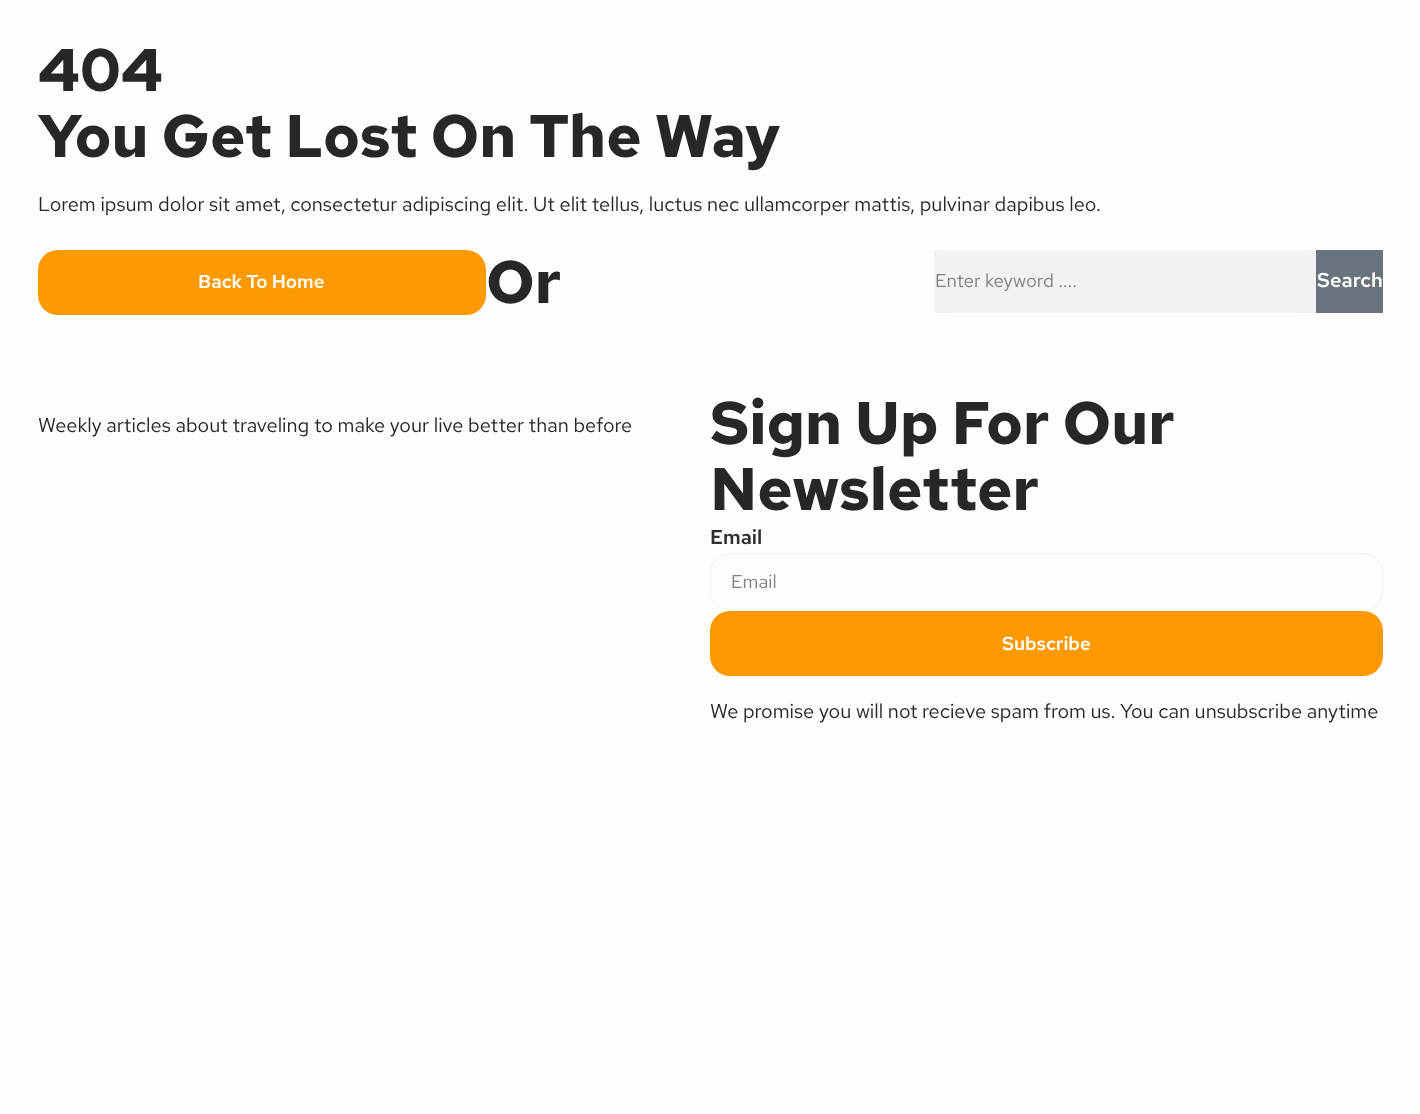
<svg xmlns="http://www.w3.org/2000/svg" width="1420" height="1114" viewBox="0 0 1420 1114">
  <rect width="100%" height="100%" fill="#fdfdfb"/>
  <rect x="38" y="250" width="448" height="65" rx="20" fill="#ff9901"/>
  <path d="M934 250h382v63H934z" fill="#f1f2f3"/>
  <rect x="934.5" y="250.5" width="381" height="62" rx="19.5" fill="none" stroke="#f4f4f4"/>
  <path d="M1316 250h67v63H1316z" fill="#69727d"/>
  <rect x="710.5" y="553.5" width="672" height="57" rx="19.5" fill="none" stroke="#f4f4f4"/>
  <rect x="710" y="611" width="673" height="65" rx="20" fill="#ff9901"/>
  <g font-family="Red Hat Text" font-size="60" font-weight="bold" fill="#272726">
    <text x="38" y="91">404</text>
    <text x="38" y="157">You Get Lost On The Way</text>
  </g>
  <text x="38" y="211" font-family="Red Hat Text" font-size="20" fill="#272726">Lorem ipsum dolor sit amet, consectetur adipiscing elit. Ut elit tellus, luctus nec ullamcorper mattis, pulvinar dapibus leo.</text>
  <text x="198" y="288" font-family="Red Hat Text" font-size="18.75" font-weight="600" fill="#fff">Back To Home</text>
  <text x="486" y="303" font-family="Red Hat Text" font-size="60" font-weight="bold" fill="#272726">Or</text>
  <text x="935" y="287" font-family="Red Hat Text" font-size="18.75" fill="#808180">Enter keyword ....</text>
  <text x="1317" y="287" font-family="Red Hat Text" font-size="20" font-weight="600" fill="#fff">Search</text>
  <text x="38" y="432" font-family="Red Hat Text" font-size="20" fill="#272726">Weekly articles about traveling to make your live better than before</text>
  <g font-family="Red Hat Text" font-size="60" font-weight="bold" fill="#272726">
    <text x="710" y="444">Sign Up For Our</text>
    <text x="710" y="510">Newsletter</text>
  </g>
  <text x="710" y="544" font-family="Red Hat Text" font-size="20" font-weight="600" fill="#2e2e2d">Email</text>
  <text x="731" y="588" font-family="Red Hat Text" font-size="18.75" fill="#808180">Email</text>
  <text x="1002" y="650" font-family="Red Hat Text" font-size="18.75" font-weight="600" fill="#fff">Subscribe</text>
  <text x="710" y="718" font-family="Red Hat Text" font-size="20" fill="#272726">We promise you will not recieve spam from us. You can unsubscribe anytime</text>
</svg>
